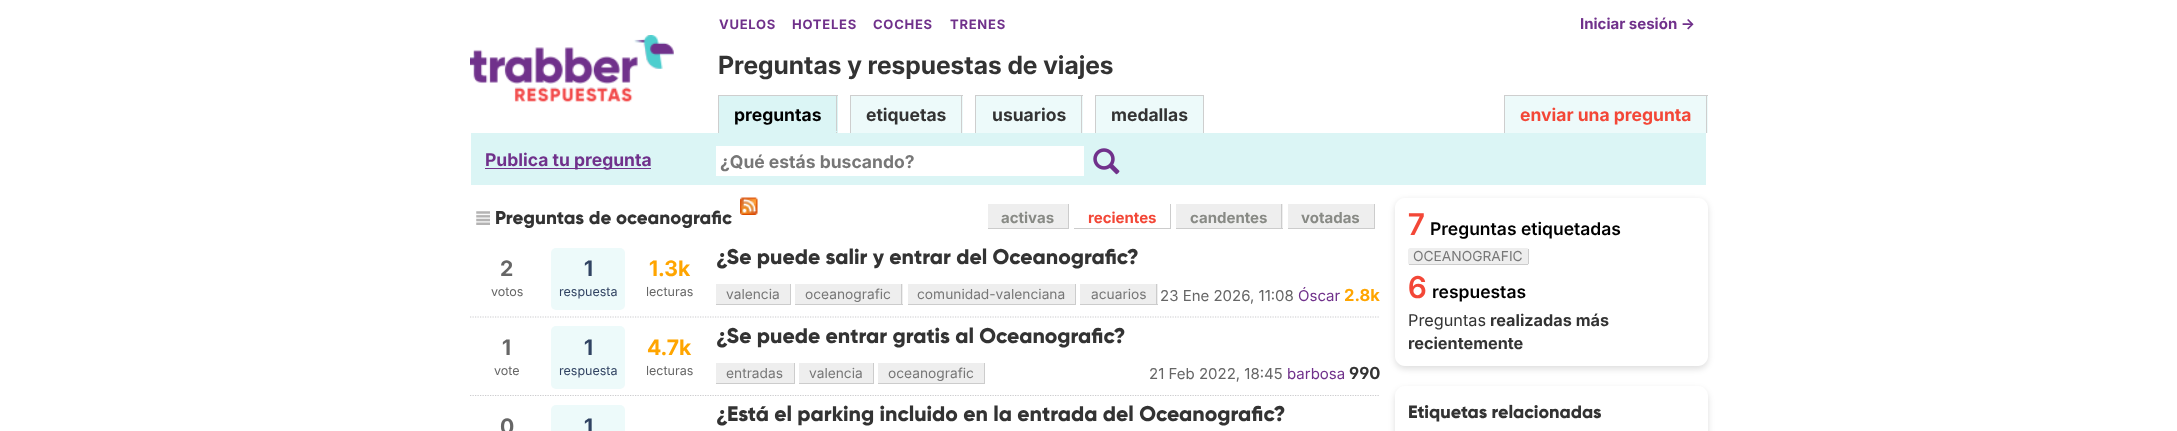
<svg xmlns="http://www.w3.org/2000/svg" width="2177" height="431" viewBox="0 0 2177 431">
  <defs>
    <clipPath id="clip1"><path d="M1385 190H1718V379H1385ZM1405 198H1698C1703.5 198 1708 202.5 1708 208V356C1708 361.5 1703.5 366 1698 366H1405C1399.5 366 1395 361.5 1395 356V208C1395 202.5 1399.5 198 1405 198Z" clip-rule="evenodd"/></clipPath>
    <clipPath id="clip2"><path d="M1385 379H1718V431H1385ZM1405 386H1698C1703.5 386 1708 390.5 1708 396V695C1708 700.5 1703.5 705 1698 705H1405C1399.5 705 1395 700.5 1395 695V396C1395 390.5 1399.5 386 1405 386Z" clip-rule="evenodd"/></clipPath>
  </defs>
  <rect width="100%" height="100%" fill="#fff"/>
  <image x="470" y="35" width="204" height="68" href="img/1.png"/>
  <path d="M719 96h119v37H719z" fill="#dbf5f5"/>
  <path d="M718 95h120v1H718z" fill="#cecece"/>
  <path d="M836 95h1v38H836z" fill="#cecece"/>
  <path d="M718 131h120v1H718z" fill="#dbf5f5"/>
  <path d="M718 95h1v38H718z" fill="#cecece"/>
  <path d="M851 96h112v37H851z" fill="#edfafa"/>
  <path d="M850 95h113v1H850z" fill="#cecece"/>
  <path d="M961 95h1v38H961z" fill="#cecece"/>
  <path d="M850 95h1v38H850z" fill="#cecece"/>
  <path d="M976 96h107v37H976z" fill="#edfafa"/>
  <path d="M975 95h108v1H975z" fill="#cecece"/>
  <path d="M1081 95h1v38H1081z" fill="#cecece"/>
  <path d="M975 95h1v38H975z" fill="#cecece"/>
  <path d="M1096 96h107v37H1096z" fill="#edfafa"/>
  <path d="M1095 95h109v1H1095z" fill="#cecece"/>
  <path d="M1203 95h1v38H1203z" fill="#cecece"/>
  <path d="M1095 95h1v38H1095z" fill="#cecece"/>
  <path d="M1505 96h203v37H1505z" fill="#edfafa"/>
  <path d="M1504 95h204v1H1504z" fill="#cecece"/>
  <path d="M1706 95h1v38H1706z" fill="#cecece"/>
  <path d="M1504 95h1v38H1504z" fill="#cecece"/>
  <path d="M471 133h1235v52H471z" fill="#dbf5f5"/>
  <path d="M485 168h166v1H485z" fill="#70318b"/>
  <path d="M716 146h368v30H716z" fill="#fff"/>
  <image x="1093" y="148" width="27" height="27" href="img/2.png"/>
  <image x="740" y="197" width="18" height="18" href="img/3.png"/>
  <image x="476" y="211" width="14" height="14" href="img/4.png"/>
  <path d="M988 204h80v24H988z" fill="#eee"/>
  <path d="M1068 204h1v25H1068z" fill="#ccc"/>
  <path d="M988 228h81v1H988z" fill="#ccc"/>
  <path d="M1170 204h1v25H1170z" fill="#ccc"/>
  <path d="M1074 228h97v1H1074z" fill="#ccc"/>
  <path d="M1176 204h107v24H1176z" fill="#eee"/>
  <path d="M1281 204h1v25H1281z" fill="#ccc"/>
  <path d="M1176 228h107v1H1176z" fill="#ccc"/>
  <path d="M1288 204h86v24H1288z" fill="#eee"/>
  <path d="M1374 204h1v25H1374z" fill="#ccc"/>
  <path d="M1288 228h87v1H1288z" fill="#ccc"/>
  <rect x="551" y="248" width="74" height="62" rx="5" fill="#edfafa"/>
  <path d="M716 284h74v20H716z" fill="#eee"/>
  <path d="M790 284h1v21H790z" fill="#ccc"/>
  <path d="M716 304h75v1H716z" fill="#ccc"/>
  <path d="M795 284h108v20H795z" fill="#eee"/>
  <path d="M901 284h1v21H901z" fill="#ccc"/>
  <path d="M795 304h108v1H795z" fill="#ccc"/>
  <path d="M908 284h167v20H908z" fill="#eee"/>
  <path d="M1075 284h1v21H1075z" fill="#ccc"/>
  <path d="M908 304h168v1H908z" fill="#ccc"/>
  <path d="M1080 284h78v20H1080z" fill="#eee"/>
  <path d="M1156 284h1v21H1156z" fill="#ccc"/>
  <path d="M1080 304h78v1H1080z" fill="#ccc"/>
  <path d="M470 317H1380" fill="none" stroke="#ccccce" stroke-width="1.2" stroke-dasharray="1.25 1.25"/>
  <rect x="551" y="326" width="74" height="63" rx="5" fill="#edfafa"/>
  <path d="M716 363h78v20H716z" fill="#eee"/>
  <path d="M794 363h1v21H794z" fill="#ccc"/>
  <path d="M716 383h79v1H716z" fill="#ccc"/>
  <path d="M799 363h74v20H799z" fill="#eee"/>
  <path d="M873 363h1v21H873z" fill="#ccc"/>
  <path d="M799 383h75v1H799z" fill="#ccc"/>
  <path d="M878 363h106v20H878z" fill="#eee"/>
  <path d="M984 363h1v21H984z" fill="#ccc"/>
  <path d="M878 383h107v1H878z" fill="#ccc"/>
  <path d="M470 395.5H1380" fill="none" stroke="#ccccce" stroke-width="1.2" stroke-dasharray="1.25 1.25"/>
  <rect x="551" y="405" width="74" height="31" rx="5" fill="#edfafa"/>
  <g clip-path="url(#clip1)">
    <rect x="1395" y="200" width="313" height="169" rx="10" fill="#00000021" filter="blur(3px)"/>
  </g>
  <rect x="1408" y="248" width="121" height="17" rx="2.5" fill="#eee"/>
  <path d="M1528 249h1v15H1528z" fill="#ccc"/>
  <path d="M1409 264h119v1H1409z" fill="#ccc"/>
  <g clip-path="url(#clip2)">
    <rect x="1395" y="389" width="313" height="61" rx="10" fill="#00000021" filter="blur(3px)"/>
  </g>
  <g font-family="Inter" font-size="13" font-weight="bold" letter-spacing="0.75" fill="#70318b">
    <text x="719" y="29">VUELOS</text>
    <text x="792" y="29">HOTELES</text>
    <text x="873" y="29">COCHES</text>
    <text x="950" y="29">TRENES</text>
  </g>
  <text x="1580" y="29" font-family="Inter" font-size="15" font-weight="bold" fill="#70318b">Iniciar sesión →</text>
  <text x="718" y="74" font-family="'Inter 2'" font-size="25" font-weight="bold" fill="#333">Preguntas y respuestas de viajes</text>
  <text x="734" y="121" font-family="Inter" font-size="17.5" font-weight="bold" fill="#000">preguntas</text>
  <g font-family="Inter" font-size="17.5" font-weight="bold" fill="#333">
    <text x="866" y="121">etiquetas</text>
    <text x="992" y="121">usuarios</text>
    <text x="1111" y="121">medallas</text>
  </g>
  <text x="1520" y="121" font-family="Inter" font-size="17.5" font-weight="bold" fill="#f34737">enviar una pregunta</text>
  <text x="485" y="166" font-family="Inter" font-size="17.5" font-weight="bold" fill="#70318b">Publica tu pregunta</text>
  <text x="720" y="168" font-family="Inter" font-size="17.5" font-weight="bold" fill="#777">¿Qué estás buscando?</text>
  <text x="495" y="224" font-family="Gilroy" font-size="18.75" font-weight="800" fill="#333">Preguntas de oceanografic</text>
  <text x="1001" y="223" font-family="Inter" font-size="15" font-weight="bold" fill="#888a85">activas</text>
  <text x="1088" y="223" font-family="Inter" font-size="15" font-weight="bold" fill="#f34737">recientes</text>
  <g font-family="Inter" font-size="15" font-weight="bold" fill="#888a85">
    <text x="1190" y="223">candentes</text>
    <text x="1301" y="223">votadas</text>
  </g>
  <text x="500" y="276" font-family="'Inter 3'" font-size="21.25" font-weight="bold" fill="#666">2</text>
  <text x="491" y="296" font-family="Inter" font-size="12.5" fill="#666">votos</text>
  <text x="584" y="276" font-family="'Inter 3'" font-size="21.25" font-weight="bold" fill="#314362">1</text>
  <text x="559" y="296" font-family="Inter" font-size="12.5" fill="#314362">respuesta</text>
  <text x="649" y="276" font-family="'Inter 3'" font-size="21.25" font-weight="bold" fill="#ffa500">1.3k</text>
  <text x="646" y="296" font-family="Inter" font-size="12.5" fill="#666">lecturas</text>
  <text x="716" y="264" font-family="Gilroy" font-size="21.25" font-weight="800" fill="#333">¿Se puede salir y entrar del Oceanografic?</text>
  <g font-family="Inter" font-size="13.75" fill="#777">
    <text x="726" y="299">valencia</text>
    <text x="805" y="299">oceanografic</text>
    <text x="917" y="299">comunidad-valenciana</text>
    <text x="1091" y="299">acuarios</text>
  </g>
  <text x="1160" y="301" font-family="Inter" font-size="15" fill="#666">23 Ene 2026, 11:08</text>
  <text x="1298" y="301" font-family="Inter" font-size="15" fill="#70318b">Óscar</text>
  <text x="1344" y="301" font-family="Inter" font-size="16.5" font-weight="bold" fill="#ffa500">2.8k</text>
  <text x="502" y="355" font-family="'Inter 3'" font-size="21.25" font-weight="bold" fill="#666">1</text>
  <text x="494" y="375" font-family="Inter" font-size="12.5" fill="#666">vote</text>
  <text x="584" y="355" font-family="'Inter 3'" font-size="21.25" font-weight="bold" fill="#314362">1</text>
  <text x="559" y="375" font-family="Inter" font-size="12.5" fill="#314362">respuesta</text>
  <text x="647" y="355" font-family="'Inter 3'" font-size="21.25" font-weight="bold" fill="#ffa500">4.7k</text>
  <text x="646" y="375" font-family="Inter" font-size="12.5" fill="#666">lecturas</text>
  <text x="716" y="343" font-family="Gilroy" font-size="21.25" font-weight="800" fill="#333">¿Se puede entrar gratis al Oceanografic?</text>
  <g font-family="Inter" font-size="13.75" fill="#777">
    <text x="726" y="378">entradas</text>
    <text x="809" y="378">valencia</text>
    <text x="888" y="378">oceanografic</text>
  </g>
  <text x="1149" y="379" font-family="Inter" font-size="15" fill="#666">21 Feb 2022, 18:45</text>
  <text x="1287" y="379" font-family="Inter" font-size="15" fill="#70318b">barbosa</text>
  <text x="1349" y="379" font-family="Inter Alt" font-size="16.5" font-weight="bold" fill="#333">990</text>
  <text x="500" y="434" font-family="'Inter 3'" font-size="21.25" font-weight="bold" fill="#666">0</text>
  <text x="584" y="434" font-family="'Inter 3'" font-size="21.25" font-weight="bold" fill="#314362">1</text>
  <text x="716" y="421" font-family="Gilroy" font-size="21.25" font-weight="800" fill="#333">¿Está el parking incluido en la entrada del Oceanografic?</text>
  <text x="1408" y="235" font-family="Inter" font-size="30" font-weight="600" fill="#f34737">7</text>
  <text x="1430" y="235" font-family="'Inter 2'" font-size="17.5" font-weight="600" fill="#000">Preguntas etiquetadas</text>
  <text x="1413" y="261" font-family="Inter" font-size="13.75" fill="#777">OCEANOGRAFIC</text>
  <text x="1408" y="298" font-family="Inter" font-size="30" font-weight="600" fill="#f34737">6</text>
  <text x="1432" y="298" font-family="'Inter 2'" font-size="17.5" font-weight="600" fill="#000">respuestas</text>
  <text x="1408" y="326" font-family="Inter" font-size="16.25" fill="#333">Preguntas</text>
  <g font-family="Inter" font-size="16.25" font-weight="bold" fill="#333">
    <text x="1490" y="326">realizadas más</text>
    <text x="1408" y="349">recientemente</text>
  </g>
  <text x="1408" y="418" font-family="Gilroy" font-size="18" font-weight="800" fill="#333">Etiquetas relacionadas</text>
</svg>
